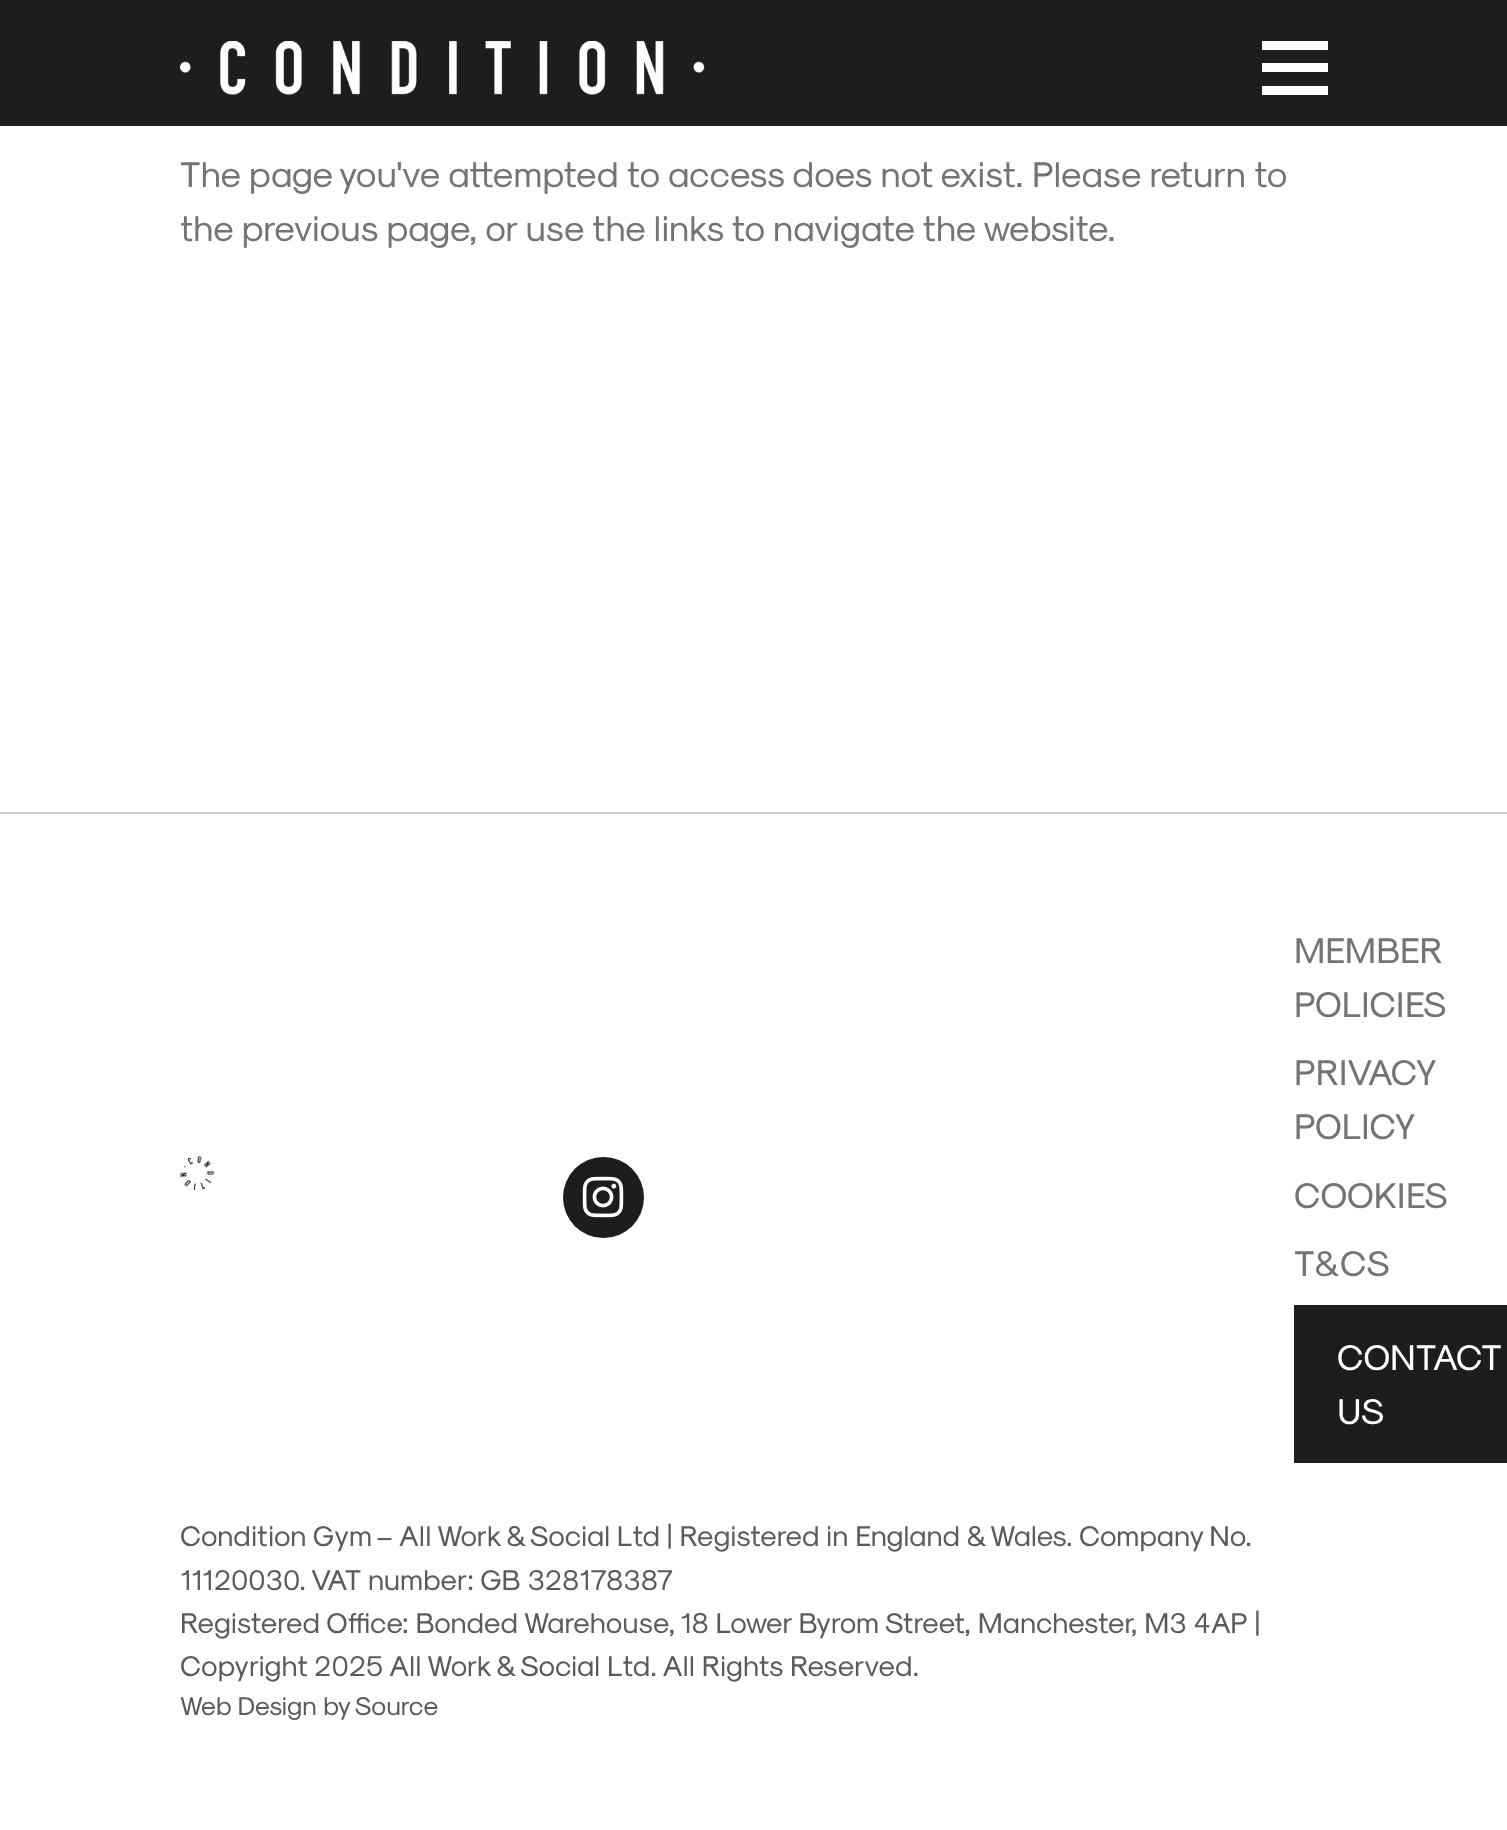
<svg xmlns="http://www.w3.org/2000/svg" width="1507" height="1830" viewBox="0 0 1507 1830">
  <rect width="100%" height="100%" fill="#fff"/>
  <path d="M0 0h1507v126H0z" fill="#1d1d1d"/>
  <image x="180" y="41" width="525" height="54" href="img/1.png"/>
  <path d="M1262 41h66v9H1262z" fill="#fff"/>
  <path d="M1262 63h66v9H1262z" fill="#fff"/>
  <path d="M1262 86h66v9H1262z" fill="#fff"/>
  <path d="M0 812h1507v2H0z" fill="#ccc"/>
  <image x="180" y="1156" width="34" height="34" href="img/2.png"/>
  <circle cx="603.5" cy="1197.5" r="40.5" fill="#1d1d1d"/>
  <image x="582" y="1176" width="42" height="42" href="img/3.png"/>
  <path d="M1294 1305h213v158H1294z" fill="#1d1d1d"/>
  <g font-family="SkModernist" font-size="36" fill="#737474">
    <text x="180" y="187">The page you've attempted to access does not exist. Please return to</text>
    <text x="180" y="241">the previous page, or use the links to navigate the website.</text>
    <text x="1294" y="963">MEMBER</text>
    <text x="1294" y="1017">POLICIES</text>
    <text x="1294" y="1085">PRIVACY</text>
    <text x="1294" y="1139">POLICY</text>
    <text x="1294" y="1208">COOKIES</text>
    <text x="1294" y="1276">T&amp;CS</text>
  </g>
  <g font-family="SkModernist" font-size="36" fill="#fff">
    <text x="1337" y="1370">CONTACT</text>
    <text x="1337" y="1424">US</text>
  </g>
  <g font-family="SkModernist" font-size="28.8" fill="#5b5b59">
    <text x="180" y="1546">Condition Gym – All Work &amp; Social Ltd | Registered in England &amp; Wales. Company No.</text>
    <text x="180" y="1590">11120030. VAT number: GB 328178387</text>
    <text x="180" y="1633">Registered Office: Bonded Warehouse, 18 Lower Byrom Street, Manchester, M3 4AP |</text>
    <text x="180" y="1676">Copyright 2025 All Work &amp; Social Ltd. All Rights Reserved.</text>
  </g>
  <text x="180" y="1715" font-family="SkModernist" font-size="26" fill="#5b5b59">Web Design by Source</text>
</svg>
